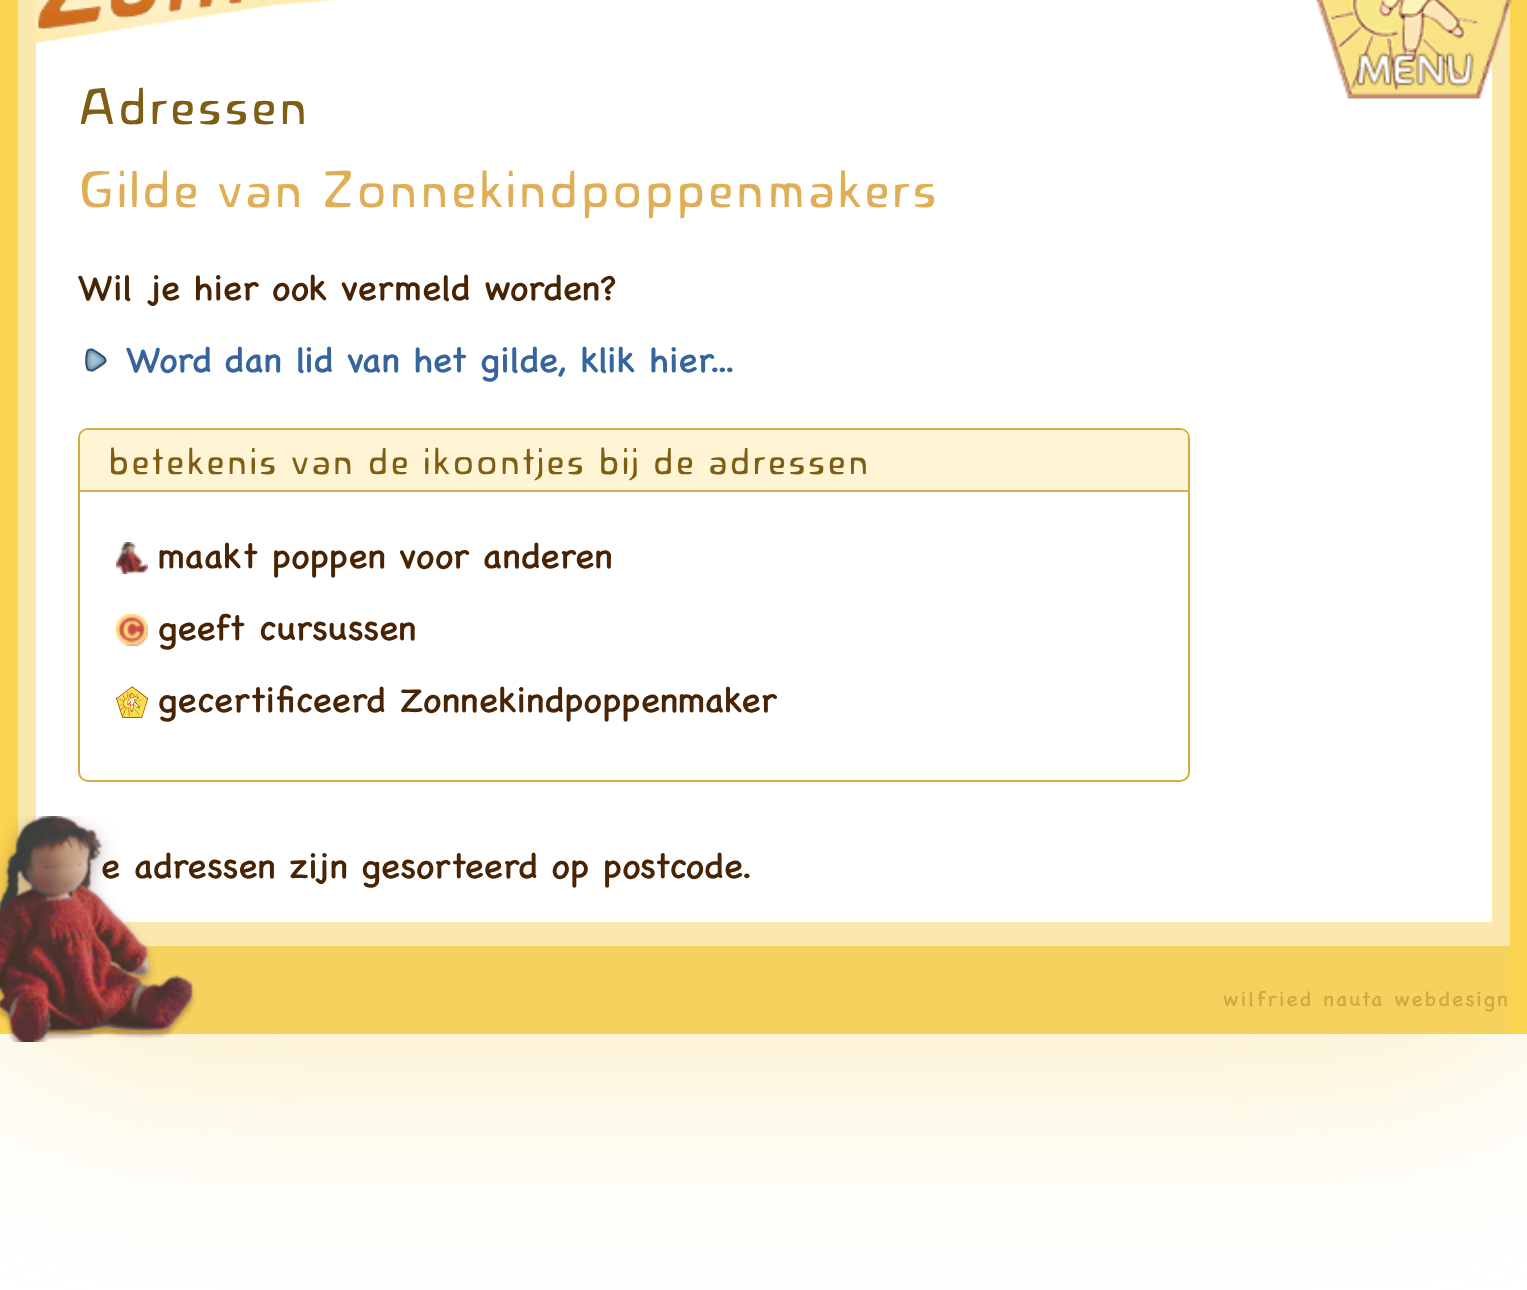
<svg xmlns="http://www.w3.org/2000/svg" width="1527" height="1290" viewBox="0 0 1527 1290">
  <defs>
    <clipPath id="clip1"><path d="M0 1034h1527v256H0z"/></clipPath>
  </defs>
  <rect width="100%" height="100%" fill="#fff"/>
  <g clip-path="url(#clip1)">
    <path d="M0 -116h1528v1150H0z" fill="#fae8ae" filter="blur(128px)"/>
  </g>
  <path d="M1510 0h17v1034H1510z" fill="#fbd451"/>
  <path d="M0 0h18v1034H0z" fill="#fbd451"/>
  <path d="M18 0h18v897H18z" fill="#fae8ae"/>
  <image x="34" y="0" width="300" height="44" href="img/1.png"/>
  <path d="M1492 0h18v922H1492z" fill="#fae8ae"/>
  <image x="1315" y="0" width="197" height="99" href="img/2.png"/>
  <image x="85" y="348" width="22" height="24" href="img/3.png"/>
  <rect x="79" y="429" width="1110" height="352" rx="9" fill="none" stroke="#d2ac42" stroke-width="2"/>
  <path d="M88 430H1180C1184.5 430 1188 433.5 1188 438V492H80V438C80 433.5 83.5 430 88 430Z" fill="#fff5d4"/>
  <path d="M80 490h1108v2H80z" fill="#d6b05e"/>
  <image x="116" y="542" width="32" height="32" href="img/4.png"/>
  <image x="116" y="614" width="32" height="32" href="img/5.png"/>
  <image x="116" y="686" width="32" height="32" href="img/6.png"/>
  <path d="M43 946h1467v88H43z" fill="#f5d15e"/>
  <path d="M119 922h1391v24H119z" fill="#fae8ae"/>
  <text x="78" y="124" font-family="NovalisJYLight" font-size="42" font-weight="300" letter-spacing="2" fill="#7e5d15">Adressen</text>
  <text x="78" y="207" font-family="NovalisJYLight" font-size="42" font-weight="300" letter-spacing="2" fill="#e0ae56">Gilde van Zonnekindpoppenmakers</text>
  <text x="78" y="300" font-family="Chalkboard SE" font-size="36" fill="#482304">Wil je hier ook vermeld worden?</text>
  <text x="126" y="372" font-family="Chalkboard SE" font-size="36" fill="#36649c">Word dan lid van het gilde, klik hier...</text>
  <text x="108" y="474" font-family="NovalisJYLight" font-size="30" font-weight="300" letter-spacing="2" fill="#7e5d15">betekenis van de ikoontjes bij de adressen</text>
  <g font-family="Chalkboard SE" font-size="36" fill="#482304">
    <text x="158" y="568">maakt poppen voor anderen</text>
    <text x="158" y="640">geeft cursussen</text>
    <text x="158" y="712">gecertificeerd Zonnekindpoppenmaker</text>
    <text x="101" y="878">e adressen zijn gesorteerd op postcode.</text>
  </g>
  <image x="0" y="816" width="196" height="226" href="img/7.png"/>
  <text x="1223" y="1006" font-family="Chalkboard SE" font-size="21" letter-spacing="2" fill="#d0ac3e">wilfried nauta webdesign</text>
</svg>
